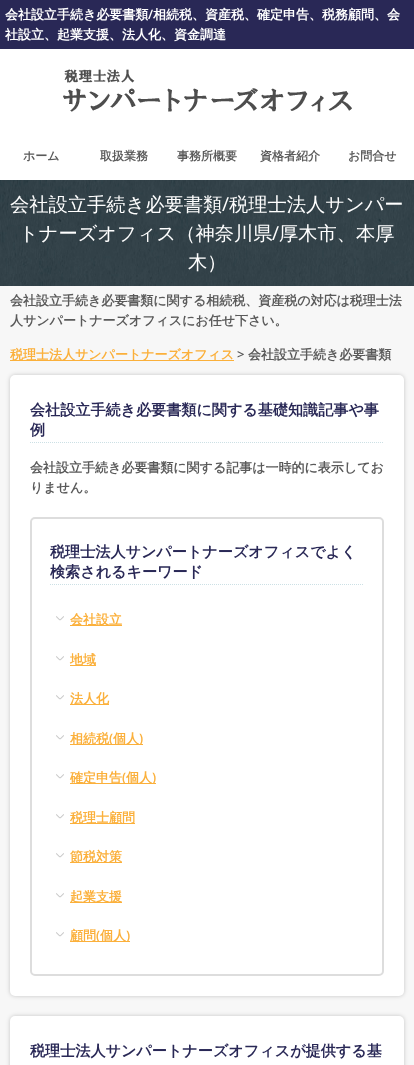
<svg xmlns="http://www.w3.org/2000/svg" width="414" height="1065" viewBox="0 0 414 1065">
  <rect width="100%" height="100%" fill="#f7f7f7"/>
  <path d="M0 49h414v131H0z" fill="#fff"/>
  <path d="M0 0h414v49H0z" fill="#292856"/>
  <image x="63" y="69" width="289" height="43" href="img/1.png"/>
  <image x="0" y="180" width="414" height="106" href="img/2.png"/>
  <path d="M10 360h224v1H10z" fill="#fbb03b"/>
  <rect x="10" y="375" width="394" height="621" rx="5" fill="#00000033" filter="blur(2px)"/>
  <rect x="10" y="375" width="394" height="621" rx="5" fill="#fff"/>
  <path d="M30 442.5H384" fill="none" stroke="#cce0e5" stroke-dasharray="1 1"/>
  <rect x="31" y="518" width="352" height="457" rx="4" fill="none" stroke="#ddd" stroke-width="2"/>
  <path d="M50 584.5H364" fill="none" stroke="#cce0e5" stroke-dasharray="1 1"/>
  <image x="56" y="616" width="8" height="5" href="img/3.png"/>
  <path d="M70 625h52v1H70z" fill="#fbb03b"/>
  <image x="56" y="656" width="8" height="5" href="img/3.png"/>
  <path d="M70 665h26v1H70z" fill="#fbb03b"/>
  <image x="56" y="695" width="8" height="5" href="img/3.png"/>
  <path d="M70 704h39v1H70z" fill="#fbb03b"/>
  <image x="56" y="735" width="8" height="5" href="img/3.png"/>
  <path d="M70 744h73v1H70z" fill="#fbb03b"/>
  <image x="56" y="774" width="8" height="5" href="img/3.png"/>
  <path d="M70 783h86v1H70z" fill="#fbb03b"/>
  <image x="56" y="814" width="8" height="5" href="img/3.png"/>
  <path d="M70 823h65v1H70z" fill="#fbb03b"/>
  <image x="56" y="853" width="8" height="5" href="img/3.png"/>
  <path d="M70 862h52v1H70z" fill="#fbb03b"/>
  <image x="56" y="893" width="8" height="5" href="img/3.png"/>
  <path d="M70 902h52v1H70z" fill="#fbb03b"/>
  <image x="56" y="932" width="8" height="5" href="img/3.png"/>
  <path d="M70 941h60v1H70z" fill="#fbb03b"/>
  <rect x="10" y="1016" width="394" height="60" rx="5" fill="#00000033" filter="blur(2px)"/>
  <rect x="10" y="1016" width="394" height="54" rx="5" fill="#fff"/>
  <text x="5" y="19" font-family="WenQuanYi Zen Hei" font-size="13" font-weight="bold" fill="#fff">会社設立手続き必要書類</text>
  <text x="148" y="19" font-family="Open Sans" font-size="13" font-weight="600" fill="#fff">/</text>
  <g font-family="WenQuanYi Zen Hei" font-size="13" font-weight="bold" fill="#fff">
    <text x="153" y="19">相続税、資産税、確定申告、税務顧問、会</text>
    <text x="5" y="39">社設立、起業支援、法人化、資金調達</text>
  </g>
  <g font-family="WenQuanYi Zen Hei" font-size="12" font-weight="bold" fill="#5a5a5a">
    <text x="23" y="160">ホーム</text>
    <text x="100" y="160">取扱業務</text>
    <text x="177" y="160">事務所概要</text>
    <text x="260" y="160">資格者紹介</text>
    <text x="348" y="160">お問合せ</text>
  </g>
  <text x="10" y="211" font-family="WenQuanYi Zen Hei" font-size="19.25" font-weight="500" fill="#fff">会社設立手続き必要書類</text>
  <text x="222" y="211" font-family="Open Sans" font-size="19.25" fill="#fff">/</text>
  <g font-family="WenQuanYi Zen Hei" font-size="19.25" font-weight="500" fill="#fff">
    <text x="229" y="211">税理士法人サンパー</text>
    <text x="19" y="240">トナーズオフィス（神奈川県</text>
  </g>
  <text x="272" y="240" font-family="Open Sans" font-size="19.25" fill="#fff">/</text>
  <g font-family="WenQuanYi Zen Hei" font-size="19.25" font-weight="500" fill="#fff">
    <text x="279" y="240">厚木市、本厚</text>
    <text x="188" y="269">木）</text>
  </g>
  <g font-family="WenQuanYi Zen Hei" font-size="13" font-weight="bold" fill="#5a5a5a">
    <text x="10" y="305">会社設立手続き必要書類に関する相続税、資産税の対応は税理士法</text>
    <text x="10" y="325">人サンパートナーズオフィスにお任せ下さい。</text>
  </g>
  <text x="10" y="359" font-family="WenQuanYi Zen Hei" font-size="13" font-weight="bold" fill="#fbb03b">税理士法人サンパートナーズオフィス</text>
  <text x="237" y="359" font-family="Open Sans" font-size="13" font-weight="600" fill="#5a5a5a">&gt;</text>
  <text x="248" y="359" font-family="WenQuanYi Zen Hei" font-size="13" font-weight="bold" fill="#5a5a5a">会社設立手続き必要書類</text>
  <g font-family="WenQuanYi Zen Hei" font-size="15.1" font-weight="bold" fill="#292856">
    <text x="30" y="415">会社設立手続き必要書類に関する基礎知識記事や事</text>
    <text x="30" y="435">例</text>
  </g>
  <g font-family="WenQuanYi Zen Hei" font-size="13" font-weight="bold" fill="#5a5a5a">
    <text x="30" y="472">会社設立手続き必要書類に関する記事は一時的に表示してお</text>
    <text x="30" y="492">りません。</text>
  </g>
  <g font-family="WenQuanYi Zen Hei" font-size="15.1" font-weight="bold" fill="#292856">
    <text x="50" y="557">税理士法人サンパートナーズオフィスでよく</text>
    <text x="50" y="577">検索されるキーワード</text>
  </g>
  <g font-family="WenQuanYi Zen Hei" font-size="13" font-weight="bold" fill="#fbb03b">
    <text x="70" y="624">会社設立</text>
    <text x="70" y="664">地域</text>
    <text x="70" y="703">法人化</text>
    <text x="70" y="743">相続税 個人</text>
  </g>
  <g font-family="Open Sans" font-size="13" font-weight="600" fill="#fbb03b">
    <text x="109" y="743">(</text>
    <text x="139" y="743">)</text>
  </g>
  <text x="70" y="782" font-family="WenQuanYi Zen Hei" font-size="13" font-weight="bold" fill="#fbb03b">確定申告 個人</text>
  <g font-family="Open Sans" font-size="13" font-weight="600" fill="#fbb03b">
    <text x="122" y="782">(</text>
    <text x="152" y="782">)</text>
  </g>
  <g font-family="WenQuanYi Zen Hei" font-size="13" font-weight="bold" fill="#fbb03b">
    <text x="70" y="822">税理士顧問</text>
    <text x="70" y="861">節税対策</text>
    <text x="70" y="901">起業支援</text>
    <text x="70" y="940">顧問 個人</text>
  </g>
  <g font-family="Open Sans" font-size="13" font-weight="600" fill="#fbb03b">
    <text x="96" y="940">(</text>
    <text x="126" y="940">)</text>
  </g>
  <text x="30" y="1056" font-family="WenQuanYi Zen Hei" font-size="15.1" font-weight="bold" fill="#292856">税理士法人サンパートナーズオフィスが提供する基</text>
</svg>
